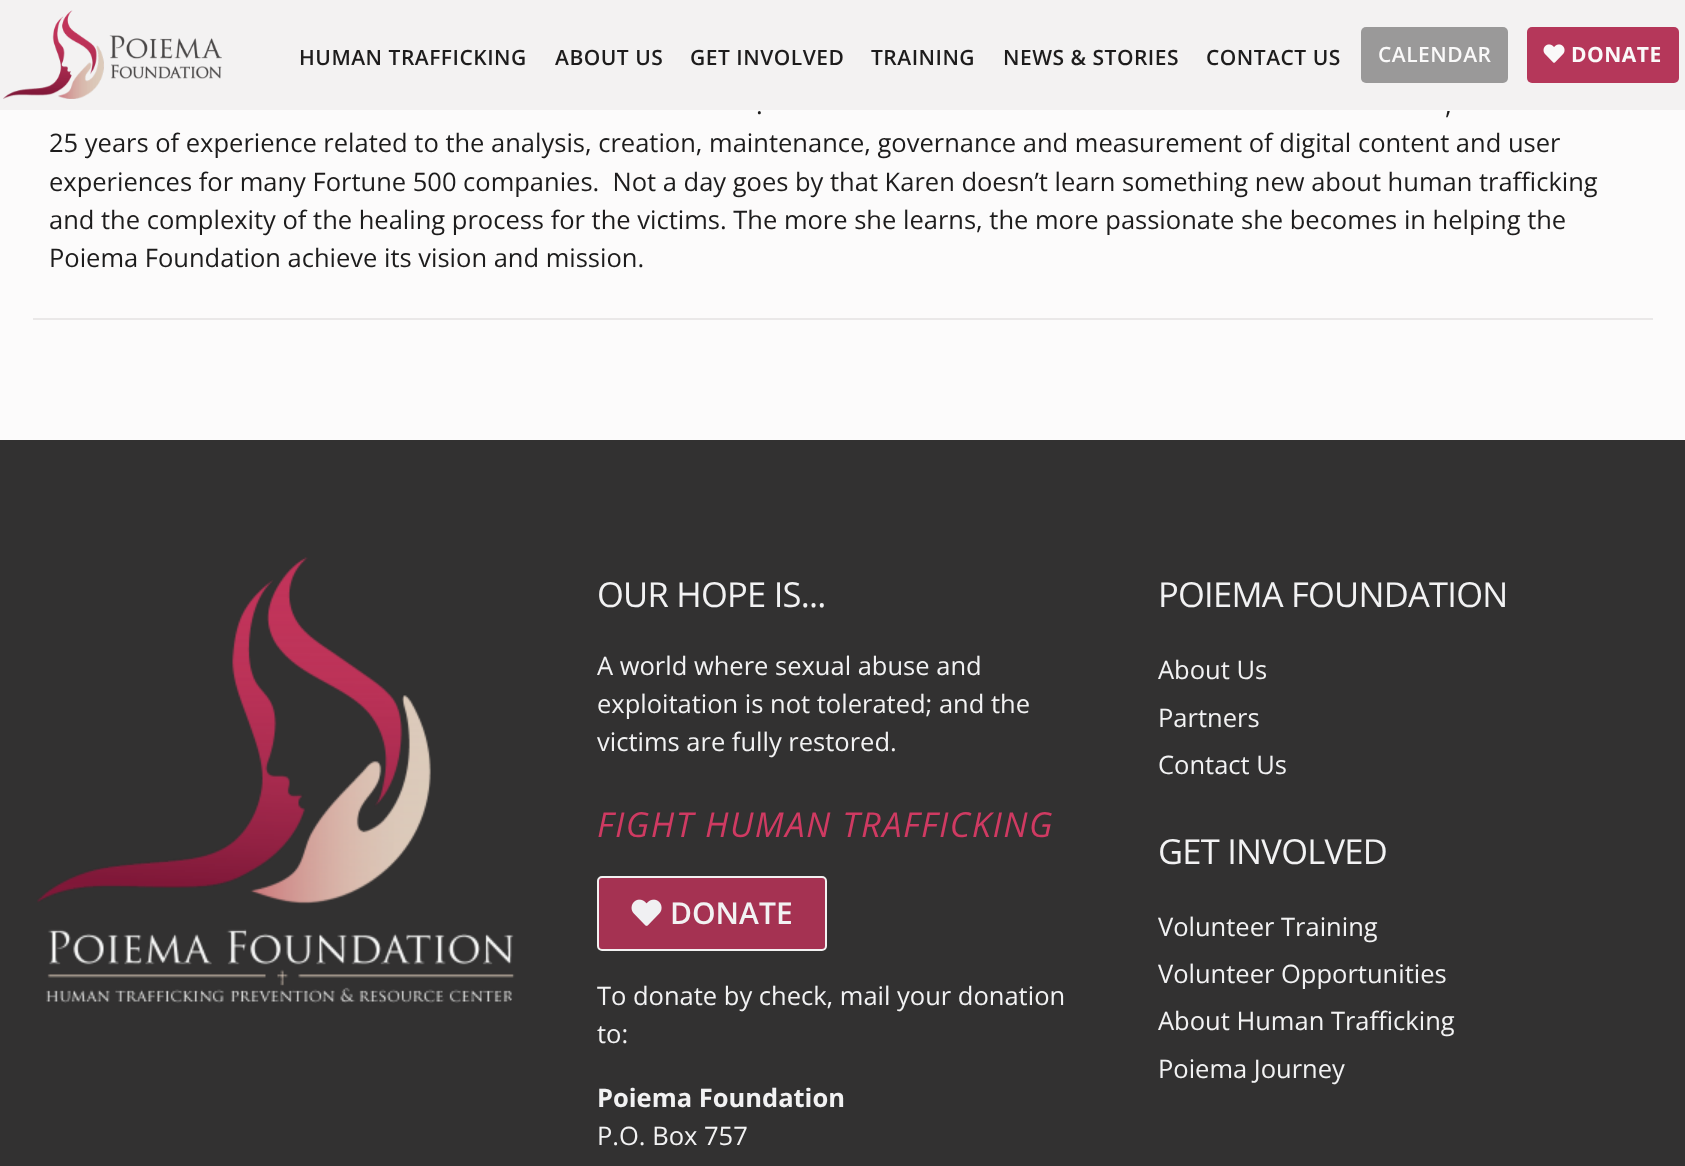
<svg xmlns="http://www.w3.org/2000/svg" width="1685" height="1166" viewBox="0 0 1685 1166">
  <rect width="100%" height="100%" fill="#fcfbfb"/>
  <path d="M0 0h1685v110H0z" fill="#f1f0f0d9"/>
  <image x="3" y="10" width="219" height="89" href="img/1.png"/>
  <rect x="1361" y="27" width="147" height="56" rx="5" fill="#9a9999"/>
  <rect x="1527" y="27" width="152" height="56" rx="5" fill="#b5375a"/>
  <image x="1543" y="44" width="22" height="19" href="img/2.png"/>
  <path d="M33 318h1620v2H33z" fill="#eae8e8"/>
  <path d="M0 440h1685v726H0z" fill="#323131"/>
  <image x="37" y="557" width="478" height="446" href="img/3.png"/>
  <rect x="598" y="877" width="228" height="73" rx="4" fill="#a53252" stroke="#f2f1f1" stroke-width="2"/>
  <image x="631" y="899" width="31" height="27" href="img/4.png"/>
  <g font-family="Open Sans" font-size="21" font-weight="600" letter-spacing="0.5" fill="#1d1c1c">
    <text x="299" y="65">HUMAN TRAFFICKING</text>
    <text x="555" y="65">ABOUT US</text>
    <text x="690" y="65">GET INVOLVED</text>
    <text x="871" y="65">TRAINING</text>
    <text x="1003" y="65">NEWS &amp; STORIES</text>
    <text x="1206" y="65">CONTACT US</text>
  </g>
  <text x="1378" y="62" font-family="Open Sans" font-size="21" font-weight="600" letter-spacing="0.5" fill="#faf9f9">CALENDAR</text>
  <text x="1571" y="62" font-family="Open Sans" font-size="21" font-weight="bold" letter-spacing="0.5" fill="#faf9f9">DONATE</text>
  <g font-family="Open Sans" font-size="25.5" fill="#1d1c1c">
    <text x="756" y="114">.</text>
    <text x="1445" y="114">,</text>
    <text x="49" y="152">25 years of experience related to the analysis, creation, maintenance, governance and measurement of digital content and user</text>
    <text x="49" y="191" xml:space="preserve">experiences for many Fortune 500 companies.  Not a day goes by that Karen doesn’t learn something new about human trafficking</text>
    <text x="49" y="229">and the complexity of the healing process for the victims. The more she learns, the more passionate she becomes in helping the</text>
    <text x="49" y="267">Poiema Foundation achieve its vision and mission.</text>
  </g>
  <text x="597" y="607" font-family="Open Sans" font-size="34.5" letter-spacing="-0.75" fill="#f2f2f3">OUR HOPE IS...</text>
  <g font-family="Open Sans" font-size="25.5" fill="#f2f2f3">
    <text x="597" y="675">A world where sexual abuse and</text>
    <text x="597" y="713">exploitation is not tolerated; and the</text>
    <text x="597" y="751">victims are fully restored.</text>
  </g>
  <text x="597" y="837" font-family="Open Sans" font-size="34.5" font-style="italic" letter-spacing="1.5" fill="#cf3a62">FIGHT HUMAN TRAFFICKING</text>
  <text x="670" y="924" font-family="Open Sans" font-size="30" font-weight="600" fill="#f2f2f3">DONATE</text>
  <g font-family="Open Sans" font-size="25.5" fill="#f2f2f3">
    <text x="597" y="1005">To donate by check, mail your donation</text>
    <text x="597" y="1043">to:</text>
  </g>
  <text x="597" y="1107" font-family="Open Sans" font-size="25.5" font-weight="bold" fill="#f2f2f3">Poiema Foundation</text>
  <text x="597" y="1145" font-family="Open Sans" font-size="25.5" fill="#f2f2f3">P.O. Box 757</text>
  <text x="1158" y="607" font-family="Open Sans" font-size="34.5" letter-spacing="-0.75" fill="#f2f2f3">POIEMA FOUNDATION</text>
  <g font-family="Open Sans" font-size="25.5" fill="#f2f2f3">
    <text x="1158" y="679">About Us</text>
    <text x="1158" y="727">Partners</text>
    <text x="1158" y="774">Contact Us</text>
  </g>
  <text x="1158" y="864" font-family="Open Sans" font-size="34.5" letter-spacing="-0.75" fill="#f2f2f3">GET INVOLVED</text>
  <g font-family="Open Sans" font-size="25.5" fill="#f2f2f3">
    <text x="1158" y="936">Volunteer Training</text>
    <text x="1158" y="983">Volunteer Opportunities</text>
    <text x="1158" y="1030">About Human Trafficking</text>
    <text x="1158" y="1078">Poiema Journey</text>
  </g>
</svg>
